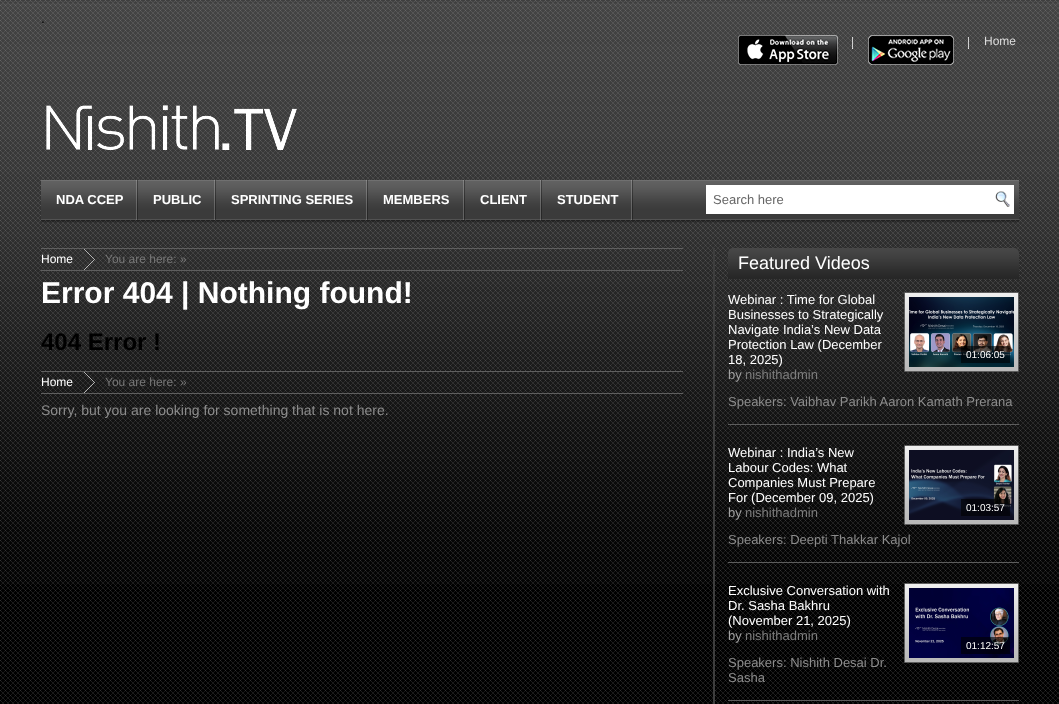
<svg xmlns="http://www.w3.org/2000/svg" width="1059" height="704" viewBox="0 0 1059 704">
  <defs>
    <clipPath id="clip1"><path d="M41 248h642v225H41z"/></clipPath>
  </defs>
  <rect width="100%" height="100%" fill="#000"/>
  <image x="0" y="0" width="1059" height="584" href="img/1.png"/>
  <image x="0" y="0" width="1059" height="704" href="img/2.png"/>
  <image x="852" y="37" width="1" height="12" href="img/3.png"/>
  <image x="738" y="35" width="100" height="30" href="img/4.png"/>
  <image x="968" y="37" width="1" height="12" href="img/3.png"/>
  <image x="868" y="35" width="86" height="30" href="img/5.png"/>
  <image x="46" y="105" width="251" height="45" href="img/6.png"/>
  <image x="41" y="180" width="978" height="43" href="img/7.png"/>
  <image x="136" y="180" width="2" height="40" href="img/8.png"/>
  <image x="214" y="180" width="2" height="40" href="img/8.png"/>
  <image x="366" y="180" width="2" height="40" href="img/8.png"/>
  <image x="463" y="180" width="2" height="40" href="img/8.png"/>
  <image x="540" y="180" width="2" height="40" href="img/8.png"/>
  <image x="631" y="180" width="2" height="40" href="img/8.png"/>
  <path d="M706 185h308v29H706z" fill="#fff"/>
  <image x="995" y="191" width="15" height="16" href="img/9.png"/>
  <path d="M41 248h642v1H41z" fill="#5f5f5f"/>
  <path d="M41 270h642v1H41z" fill="#5f5f5f"/>
  <image x="84" y="249" width="11" height="21" href="img/10.png"/>
  <path d="M41 371h642v1H41z" fill="#5f5f5f"/>
  <path d="M41 393h642v1H41z" fill="#5f5f5f"/>
  <image x="84" y="372" width="11" height="21" href="img/11.png"/>
  <path d="M713 248h2v456H713z" fill="#3e3e3e"/>
  <image x="728" y="248" width="291" height="31" href="img/12.png"/>
  <path d="M728 424h291v1H728z" fill="#5d5d5d"/>
  <image x="905" y="293" width="113" height="78" href="img/13.png"/>
  <path d="M904.5 292.5h114v79H904.5z" fill="none" stroke="#5d5d5d"/>
  <image x="909" y="297" width="105" height="70" href="img/14.png"/>
  <path d="M961 346h49v17H961z" fill="#00000099"/>
  <path d="M728 562h291v1H728z" fill="#5d5d5d"/>
  <image x="905" y="446" width="113" height="78" href="img/13.png"/>
  <path d="M904.5 445.5h114v79H904.5z" fill="none" stroke="#5d5d5d"/>
  <image x="909" y="450" width="105" height="70" href="img/15.png"/>
  <path d="M961 499h49v17H961z" fill="#00000099"/>
  <path d="M728 700h291v1H728z" fill="#5d5d5d"/>
  <image x="905" y="584" width="113" height="78" href="img/13.png"/>
  <path d="M904.5 583.5h114v79H904.5z" fill="none" stroke="#5d5d5d"/>
  <image x="909" y="588" width="105" height="70" href="img/16.png"/>
  <path d="M961 637h49v17H961z" fill="#00000099"/>
  <text x="41" y="23" font-family="Liberation Sans" font-size="14" fill="#000">.</text>
  <text x="984" y="45" font-family="Liberation Sans" font-size="12" fill="#ddd">Home</text>
  <g font-family="Liberation Sans" font-size="13" font-weight="bold" fill="#fff">
    <text x="56" y="204">NDA CCEP</text>
    <text x="153" y="204">PUBLIC</text>
    <text x="231" y="204">SPRINTING SERIES</text>
    <text x="383" y="204">MEMBERS</text>
    <text x="480" y="204">CLIENT</text>
    <text x="557" y="204">STUDENT</text>
  </g>
  <text x="713" y="204" font-family="Liberation Sans" font-size="13" fill="#666">Search here</text>
  <text x="41" y="263" font-family="Liberation Sans" font-size="12" fill="#fff">Home</text>
  <text x="105" y="263" font-family="Liberation Sans" font-size="12" fill="#777">You are here: »</text>
  <text x="41" y="303" font-family="Liberation Sans" font-size="30" font-weight="bold" fill="#fff">Error 404 | Nothing found!</text>
  <g clip-path="url(#clip1)">
    <text x="41" y="350" font-family="Liberation Sans" font-size="24" font-weight="bold" fill="#000">404 Error !</text>
  </g>
  <text x="41" y="386" font-family="Liberation Sans" font-size="12" fill="#fff">Home</text>
  <text x="105" y="386" font-family="Liberation Sans" font-size="12" fill="#777">You are here: »</text>
  <text x="41" y="415" font-family="Liberation Sans" font-size="14" fill="#8c8c8c">Sorry, but you are looking for something that is not here.</text>
  <text x="738" y="269" font-family="Liberation Sans" font-size="18" fill="#fff">Featured Videos</text>
  <g font-family="Liberation Sans" font-size="13" fill="#fff">
    <text x="728" y="304">Webinar : Time for Global</text>
    <text x="728" y="319">Businesses to Strategically</text>
    <text x="728" y="334">Navigate India’s New Data</text>
    <text x="728" y="349">Protection Law (December</text>
    <text x="728" y="364">18, 2025)</text>
  </g>
  <text x="966" y="358" font-family="Liberation Sans" font-size="10" fill="#fff">01:06:05</text>
  <text x="728" y="379" font-family="Liberation Sans" font-size="13" fill="#a1a1a1">by</text>
  <text x="745" y="379" font-family="Liberation Sans" font-size="13" fill="#7d7d7d">nishithadmin</text>
  <text x="728" y="406" font-family="Liberation Sans" font-size="13" fill="#8c8c8c">Speakers: Vaibhav Parikh Aaron Kamath Prerana</text>
  <g font-family="Liberation Sans" font-size="13" fill="#fff">
    <text x="728" y="457">Webinar : India’s New</text>
    <text x="728" y="472">Labour Codes: What</text>
    <text x="728" y="487">Companies Must Prepare</text>
    <text x="728" y="502">For (December 09, 2025)</text>
  </g>
  <text x="728" y="517" font-family="Liberation Sans" font-size="13" fill="#a1a1a1">by</text>
  <text x="745" y="517" font-family="Liberation Sans" font-size="13" fill="#7d7d7d">nishithadmin</text>
  <text x="966" y="511" font-family="Liberation Sans" font-size="10" fill="#fff">01:03:57</text>
  <text x="728" y="544" font-family="Liberation Sans" font-size="13" fill="#8c8c8c">Speakers: Deepti Thakkar Kajol</text>
  <g font-family="Liberation Sans" font-size="13" fill="#fff">
    <text x="728" y="595">Exclusive Conversation with</text>
    <text x="728" y="610">Dr. Sasha Bakhru</text>
    <text x="728" y="625">(November 21, 2025)</text>
  </g>
  <text x="728" y="640" font-family="Liberation Sans" font-size="13" fill="#a1a1a1">by</text>
  <text x="745" y="640" font-family="Liberation Sans" font-size="13" fill="#7d7d7d">nishithadmin</text>
  <text x="966" y="649" font-family="Liberation Sans" font-size="10" fill="#fff">01:12:57</text>
  <g font-family="Liberation Sans" font-size="13" fill="#8c8c8c">
    <text x="728" y="667">Speakers: Nishith Desai Dr.</text>
    <text x="728" y="682">Sasha</text>
  </g>
</svg>
